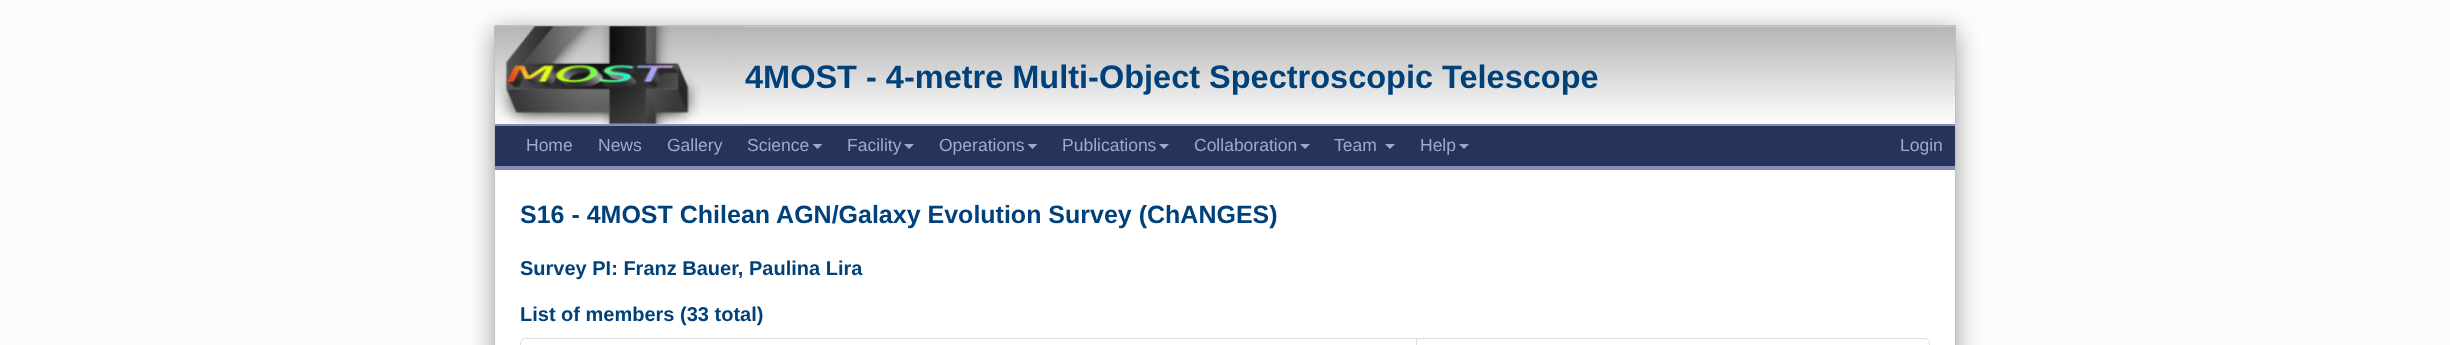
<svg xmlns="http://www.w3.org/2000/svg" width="2450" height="345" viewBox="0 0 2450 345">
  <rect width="100%" height="100%" fill="#fcfcfc"/>
  <path d="M494 31h1462v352H494z" fill="#999" filter="blur(12.5px)"/>
  <path d="M494.5 25.5h1461v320H494.5z" fill="#fff" stroke="#c0c0c0"/>
  <image x="495" y="26" width="1460" height="94" href="img/1.png"/>
  <path d="M495 124h1460v2H495z" fill="#828eb5"/>
  <image x="495" y="26" width="250" height="98" href="img/2.png"/>
  <path d="M495 126h1460v40H495z" fill="#273359"/>
  <path d="M495 166h1460v4H495z" fill="#828eb5"/>
  <path d="M812.5 144H822.5L817.5 149Z" fill="#9fa9c9"/>
  <path d="M904 144H914L909 149Z" fill="#9fa9c9"/>
  <path d="M1027.5 144H1037.5L1032.5 149Z" fill="#9fa9c9"/>
  <path d="M1159 144H1169L1164 149Z" fill="#9fa9c9"/>
  <path d="M1300 144H1310L1305 149Z" fill="#9fa9c9"/>
  <path d="M1385 144H1395L1390 149Z" fill="#9fa9c9"/>
  <path d="M1459 144H1469L1464 149Z" fill="#9fa9c9"/>
  <rect x="520.5" y="338.5" width="1409" height="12" rx="4.5" fill="none" stroke="#ddd"/>
  <path d="M1416 339h1v6H1416z" fill="#ddd"/>
  <text x="745" y="88" font-family="Liberation Sans" font-size="32.5" font-weight="bold" fill="#004179">4MOST - 4-metre Multi-Object Spectroscopic Telescope</text>
  <g font-family="Liberation Sans" font-size="17.5" fill="#9fa9c9">
    <text x="526" y="151">Home</text>
    <text x="598" y="151">News</text>
    <text x="667" y="151">Gallery</text>
    <text x="747" y="151">Science</text>
    <text x="847" y="151">Facility</text>
    <text x="939" y="151">Operations</text>
    <text x="1062" y="151">Publications</text>
    <text x="1194" y="151">Collaboration</text>
    <text x="1334" y="151">Team</text>
    <text x="1420" y="151">Help</text>
    <text x="1900" y="151">Login</text>
  </g>
  <text x="520" y="223" font-family="Liberation Sans" font-size="25" font-weight="bold" fill="#004179">S16 - 4MOST Chilean AGN/Galaxy Evolution Survey (ChANGES)</text>
  <g font-family="Liberation Sans" font-size="20" font-weight="bold" fill="#004179">
    <text x="520" y="275">Survey PI: Franz Bauer, Paulina Lira</text>
    <text x="520" y="321">List of members (33 total)</text>
  </g>
</svg>
